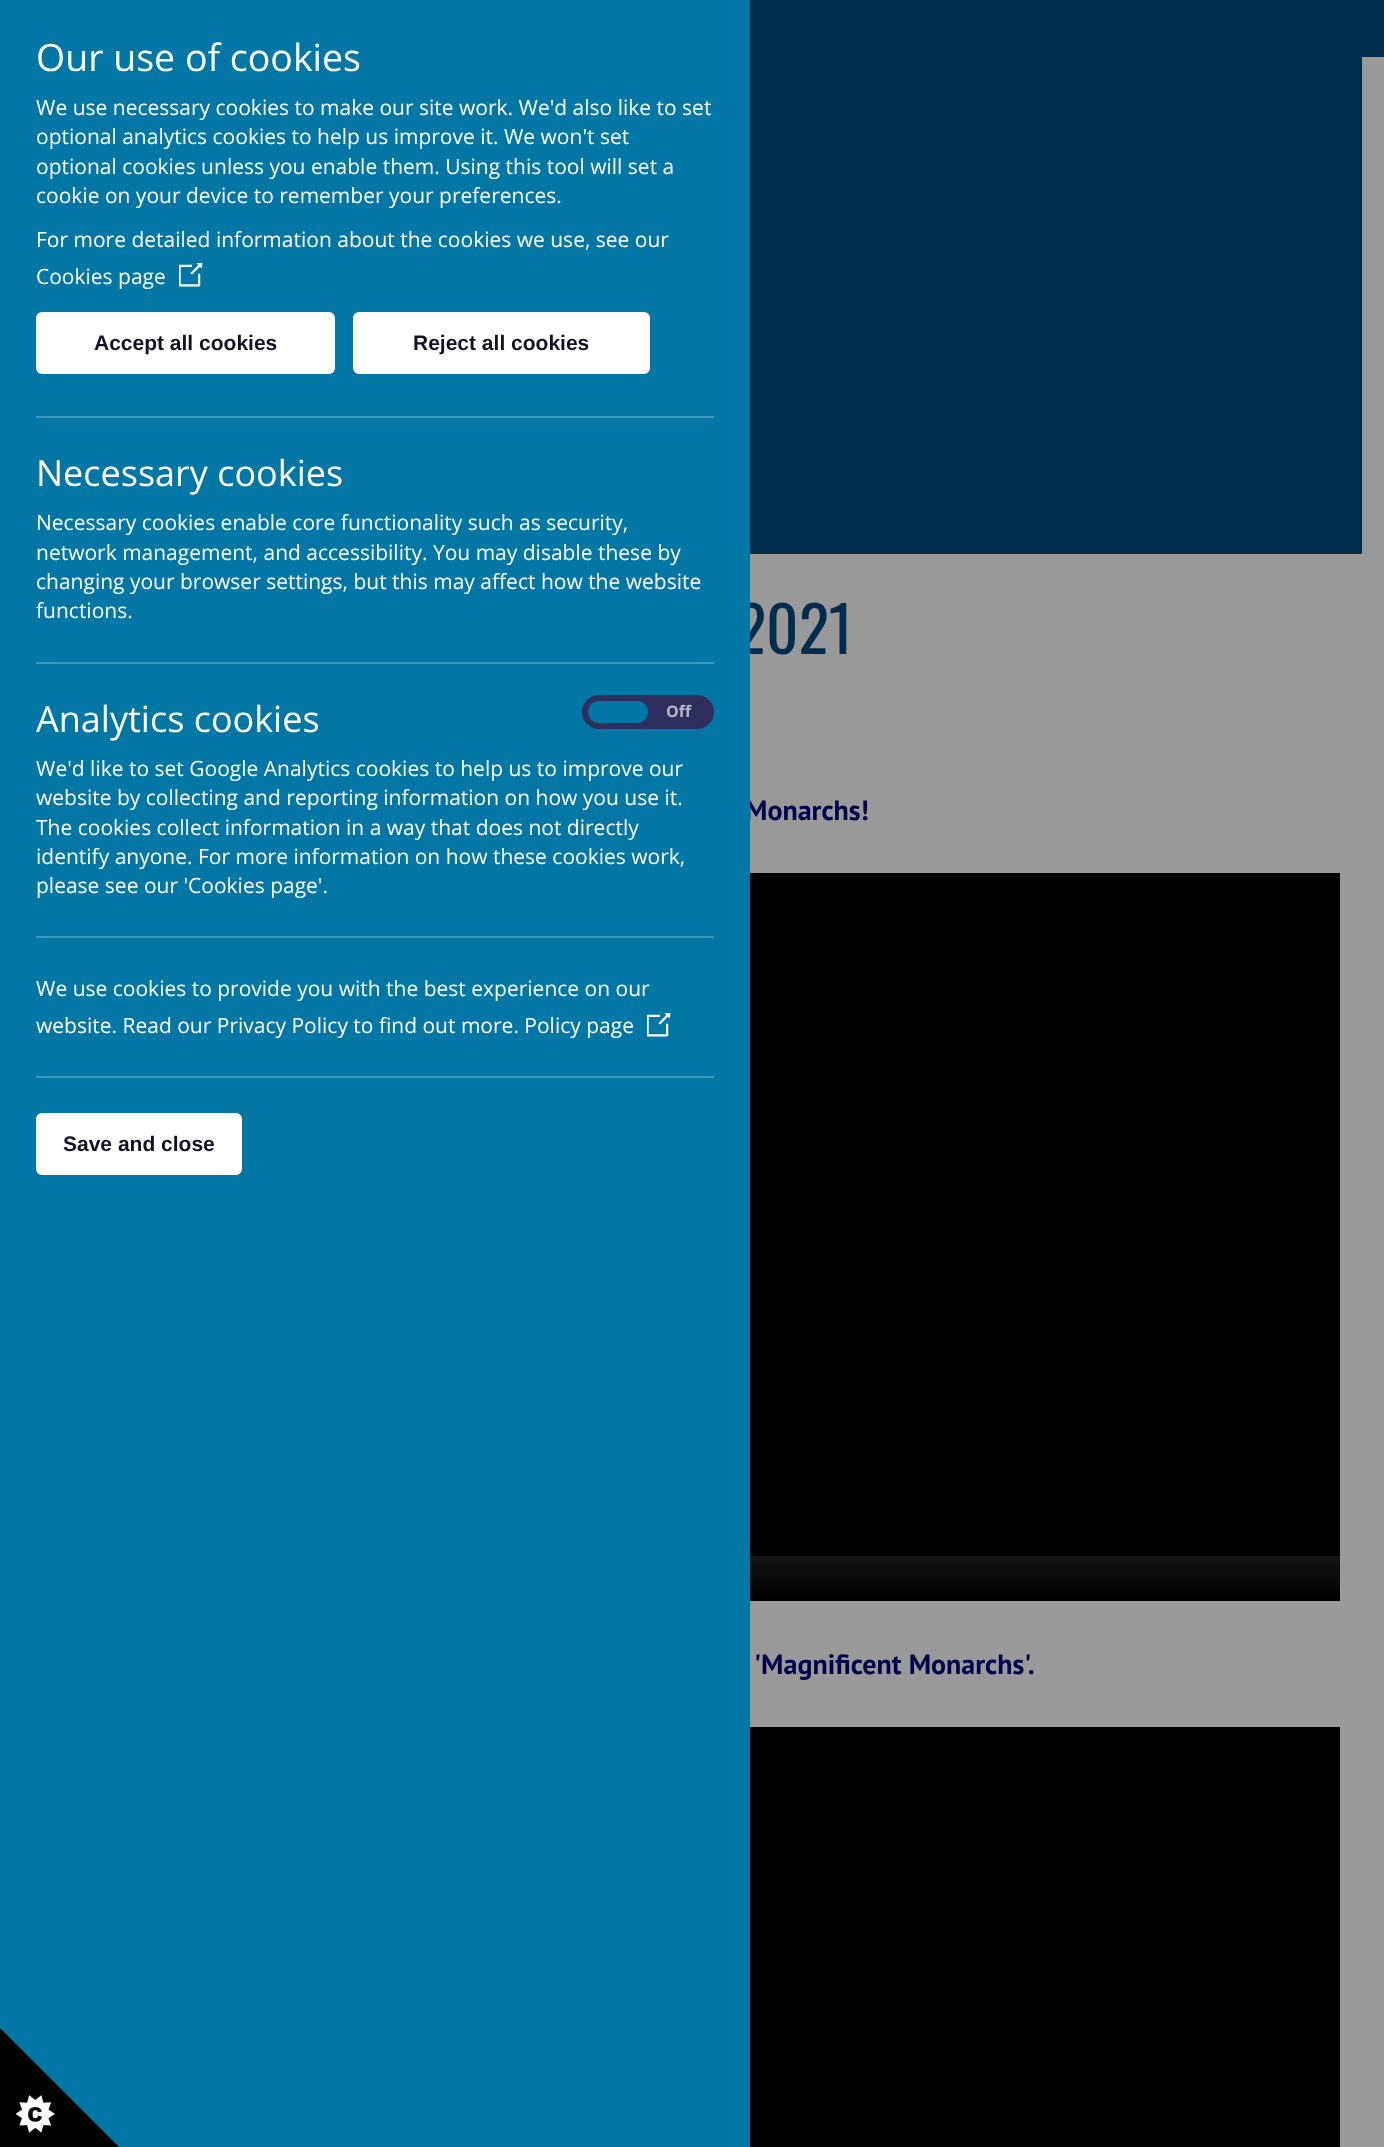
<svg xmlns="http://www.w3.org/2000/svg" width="1384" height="2147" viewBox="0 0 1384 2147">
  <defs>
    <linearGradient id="g1" gradientUnits="userSpaceOnUse" x1="692" y1="1556" x2="692" y2="1601"><stop offset="0" stop-color="#151515"/><stop offset="1" stop-color="#000"/></linearGradient>
  </defs>
  <rect width="100%" height="100%" fill="#999"/>
  <path d="M750 0h634v57H750z" fill="#002c4d"/>
  <path d="M750 57h612v497H750z" fill="#002c4d"/>
  <path d="M750 873h590v683H750z" fill="#000"/>
  <path d="M750 1556h590v45H750z" fill="url(#g1)"/>
  <path d="M750 1727h590v420H750z" fill="#000"/>
  <text x="736" y="654" font-family="Oswald" font-size="63" fill="#002c4d">2021</text>
  <text x="745" y="820" font-family="PT Sans" font-size="28" font-weight="bold" fill="#00004d">Monarchs!</text>
  <path d="M0 0h750v2147H0z" fill="#0276a5"/>
  <image x="0" y="2028" width="119" height="119" href="img/2.png"/>
  <rect x="585" y="698" width="126" height="28" rx="14" fill="#2f2f5f" stroke="#2f2f5f" stroke-width="6"/>
  <rect x="588" y="701" width="60" height="22" rx="11" fill="#0276a5"/>
  <text x="666" y="717" font-family="Open Sans" font-size="16" font-weight="bold" fill="#b6b6c7">Off</text>
  <path d="M36 1076h678v2H36z" fill="#4198bc"/>
  <image x="647" y="1013" width="24" height="24" href="img/1.png"/>
  <path d="M36 936h678v2H36z" fill="#4198bc"/>
  <g font-family="Open Sans" font-size="21" fill="#fff">
    <text x="36" y="1033">website. Read our Privacy Policy to find out more. Policy page</text>
    <text x="36" y="996">We use cookies to provide you with the best experience on our</text>
    <text x="36" y="893">please see our 'Cookies page'.</text>
    <text x="36" y="864">identify anyone. For more information on how these cookies work,</text>
    <text x="36" y="835">The cookies collect information in a way that does not directly</text>
    <text x="36" y="805">website by collecting and reporting information on how you use it.</text>
    <text x="36" y="776">We'd like to set Google Analytics cookies to help us to improve our</text>
  </g>
  <text x="36" y="732" font-family="Open Sans" font-size="36" fill="#fff">Analytics cookies</text>
  <path d="M36 662h678v2H36z" fill="#4198bc"/>
  <path d="M36 416h678v2H36z" fill="#4198bc"/>
  <image x="179" y="263" width="24" height="24" href="img/1.png"/>
  <rect x="37.5" y="1114.5" width="203" height="59" rx="4.5" fill="#fff" stroke="#fff" stroke-width="3"/>
  <text x="63" y="1151" font-family="Liberation Sans" font-size="21" font-weight="bold" fill="#111125">Save and close</text>
  <g font-family="Open Sans" font-size="21" fill="#fff">
    <text x="36" y="618">functions.</text>
    <text x="36" y="589">changing your browser settings, but this may affect how the website</text>
    <text x="36" y="560">network management, and accessibility. You may disable these by</text>
    <text x="36" y="530">Necessary cookies enable core functionality such as security,</text>
  </g>
  <text x="36" y="486" font-family="Open Sans" font-size="36" fill="#fff">Necessary cookies</text>
  <rect x="354.5" y="313.5" width="294" height="59" rx="4.5" fill="#fff" stroke="#fff" stroke-width="3"/>
  <text x="413" y="350" font-family="Liberation Sans" font-size="21" font-weight="bold" fill="#111125">Reject all cookies</text>
  <rect x="37.5" y="313.5" width="296" height="59" rx="4.5" fill="#fff" stroke="#fff" stroke-width="3"/>
  <text x="94" y="350" font-family="Liberation Sans" font-size="21" font-weight="bold" fill="#111125">Accept all cookies</text>
  <g font-family="Open Sans" font-size="21" fill="#fff">
    <text x="36" y="284">Cookies page</text>
    <text x="36" y="247">For more detailed information about the cookies we use, see our</text>
    <text x="36" y="203">cookie on your device to remember your preferences.</text>
    <text x="36" y="174">optional cookies unless you enable them. Using this tool will set a</text>
    <text x="36" y="144">optional analytics cookies to help us improve it. We won't set</text>
    <text x="36" y="115">We use necessary cookies to make our site work. We'd also like to set</text>
  </g>
  <text x="36" y="71" font-family="Open Sans" font-size="37.5" fill="#fff">Our use of cookies</text>
  <text x="754" y="1674" font-family="PT Sans" font-size="28" font-weight="bold" fill="#00004d">'Magnificent Monarchs'.</text>
</svg>
